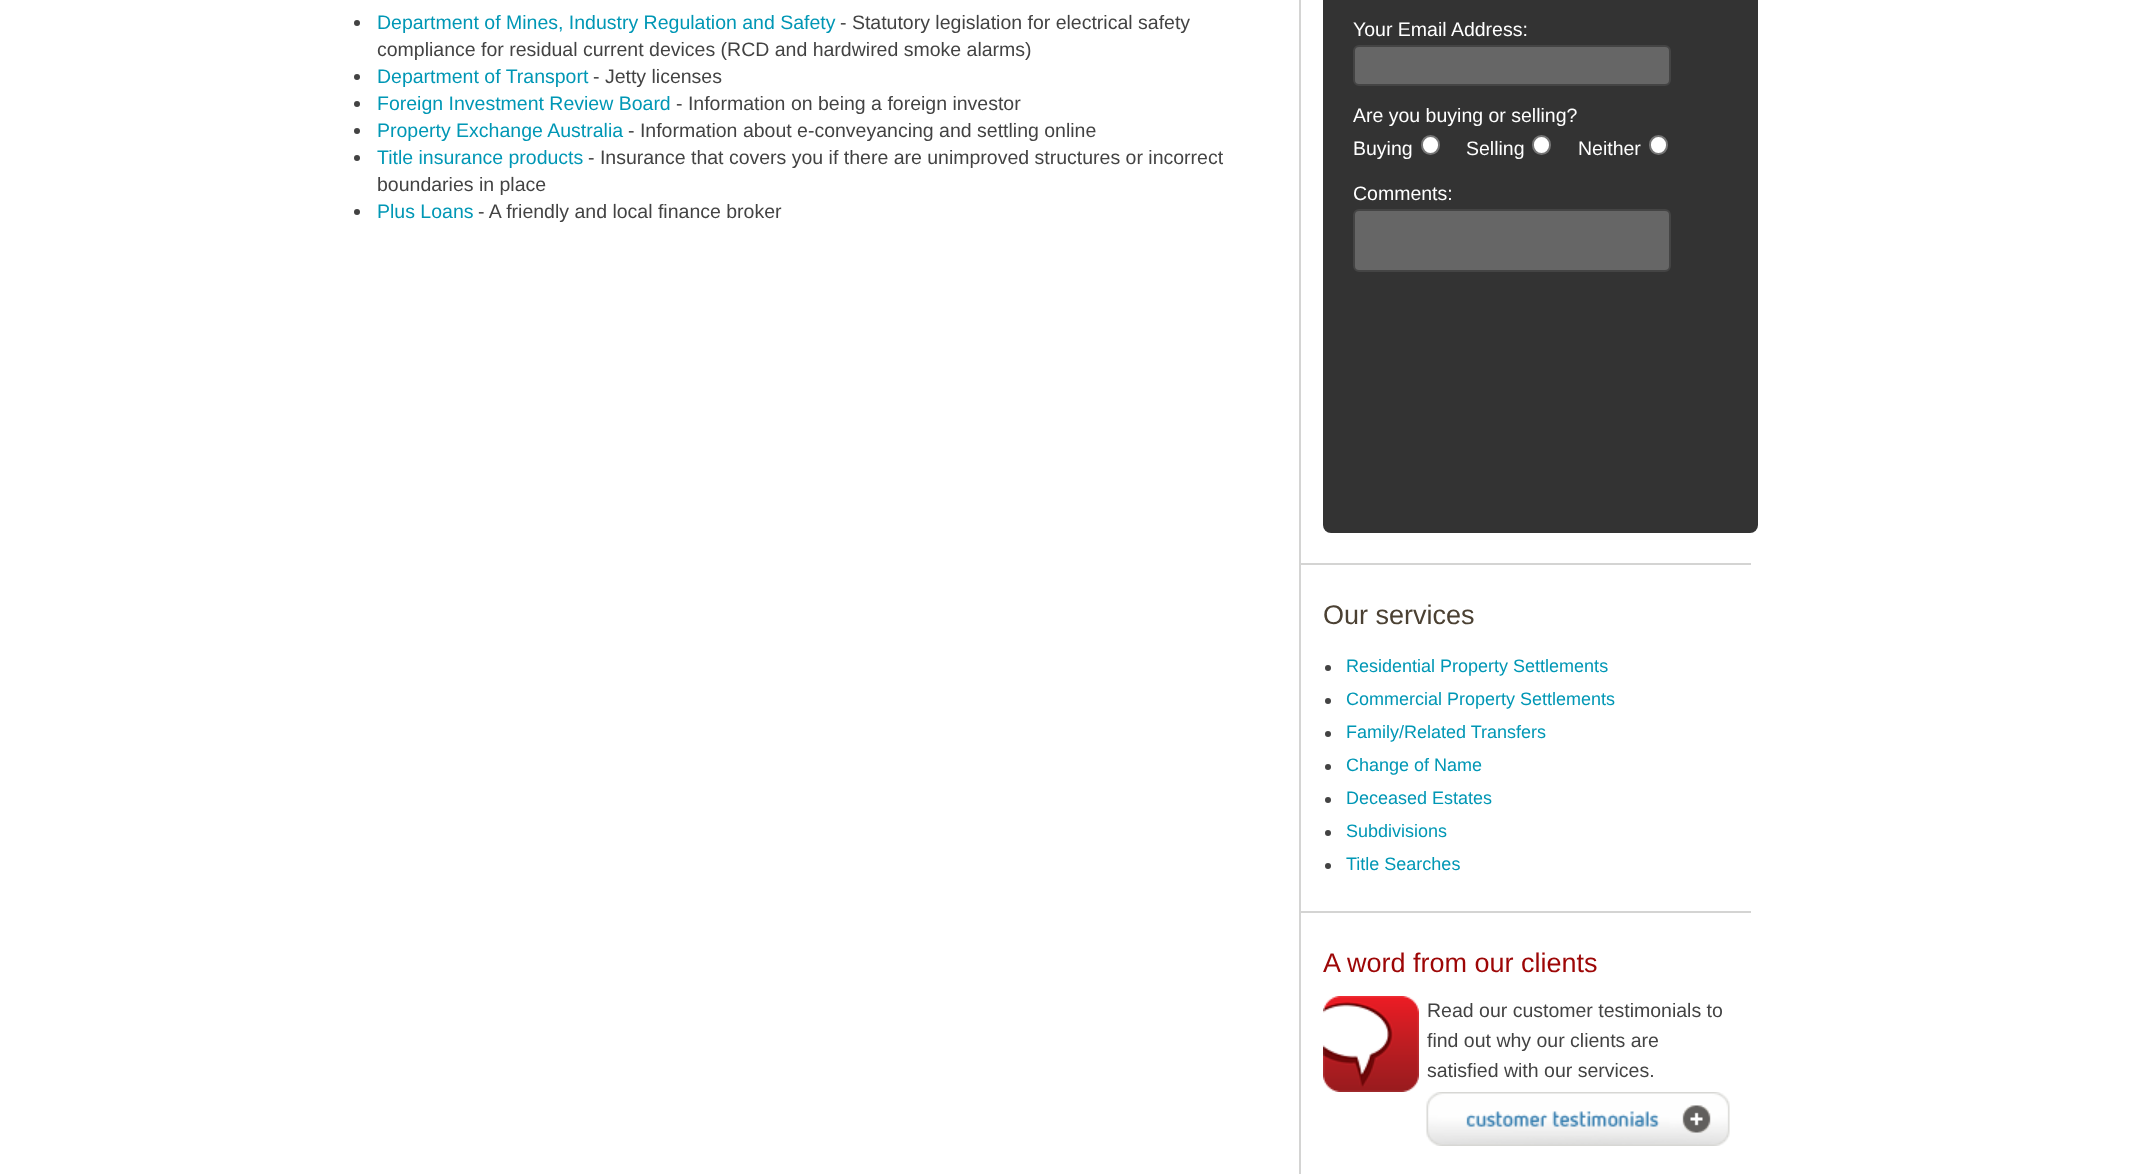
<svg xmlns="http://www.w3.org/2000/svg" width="2139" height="1174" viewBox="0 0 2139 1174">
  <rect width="100%" height="100%" fill="#fff"/>
  <circle cx="357" cy="23" r="3" fill="#434343"/>
  <circle cx="357" cy="77" r="3" fill="#434343"/>
  <circle cx="357" cy="104" r="3" fill="#434343"/>
  <circle cx="357" cy="131" r="3" fill="#434343"/>
  <circle cx="357" cy="158" r="3" fill="#434343"/>
  <circle cx="357" cy="212" r="3" fill="#434343"/>
  <path d="M1299 0h2v1174H1299z" fill="#d4d4d3"/>
  <path d="M1301 563h450v2H1301z" fill="#d4d4d3"/>
  <rect x="1323" y="-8" width="435" height="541" rx="8" fill="#333"/>
  <rect x="1354" y="46" width="316" height="39" rx="5" fill="#666" stroke="#444" stroke-width="2"/>
  <rect x="1422" y="136" width="17" height="18" rx="8.5" fill="#fff" stroke="#767676" stroke-width="2"/>
  <rect x="1533" y="136" width="17" height="18" rx="8.5" fill="#fff" stroke="#767676" stroke-width="2"/>
  <rect x="1650" y="136" width="17" height="18" rx="8.5" fill="#fff" stroke="#767676" stroke-width="2"/>
  <rect x="1354" y="210" width="316" height="61" rx="5" fill="#666" stroke="#444" stroke-width="2"/>
  <path d="M1301 911h450v2H1301z" fill="#d4d4d3"/>
  <circle cx="1328" cy="668" r="3" fill="#434343"/>
  <circle cx="1328" cy="701" r="3" fill="#434343"/>
  <circle cx="1328" cy="734" r="3" fill="#434343"/>
  <circle cx="1328" cy="767" r="3" fill="#434343"/>
  <circle cx="1328" cy="800" r="3" fill="#434343"/>
  <circle cx="1328" cy="833" r="3" fill="#434343"/>
  <circle cx="1328" cy="866" r="3" fill="#434343"/>
  <image x="1323" y="996" width="96" height="96" href="img/1.png"/>
  <image x="1426" y="1092" width="304" height="54" href="img/2.png"/>
  <text x="377" y="29" font-family="Liberation Sans" font-size="19.5" fill="#0097b5">Department of Mines, Industry Regulation and Safety</text>
  <g font-family="Liberation Sans" font-size="19.5" fill="#434343">
    <text x="840" y="29">- Statutory legislation for electrical safety</text>
    <text x="377" y="56">compliance for residual current devices (RCD and hardwired smoke alarms)</text>
  </g>
  <text x="377" y="83" font-family="Liberation Sans" font-size="19.5" fill="#0097b5">Department of Transport</text>
  <text x="593" y="83" font-family="Liberation Sans" font-size="19.5" fill="#434343">- Jetty licenses</text>
  <text x="377" y="110" font-family="Liberation Sans" font-size="19.5" fill="#0097b5">Foreign Investment Review Board</text>
  <text x="676" y="110" font-family="Liberation Sans" font-size="19.5" fill="#434343">- Information on being a foreign investor</text>
  <text x="377" y="137" font-family="Liberation Sans" font-size="19.5" fill="#0097b5">Property Exchange Australia</text>
  <text x="628" y="137" font-family="Liberation Sans" font-size="19.5" fill="#434343">- Information about e-conveyancing and settling online</text>
  <text x="377" y="164" font-family="Liberation Sans" font-size="19.5" fill="#0097b5">Title insurance products</text>
  <g font-family="Liberation Sans" font-size="19.5" fill="#434343">
    <text x="588" y="164">- Insurance that covers you if there are unimproved structures or incorrect</text>
    <text x="377" y="191">boundaries in place</text>
  </g>
  <text x="377" y="218" font-family="Liberation Sans" font-size="19.5" fill="#0097b5">Plus Loans</text>
  <text x="478" y="218" font-family="Liberation Sans" font-size="19.5" fill="#434343">- A friendly and local finance broker</text>
  <g font-family="Liberation Sans" font-size="19.5" fill="#fff">
    <text x="1353" y="36">Your Email Address:</text>
    <text x="1353" y="122">Are you buying or selling?</text>
    <text x="1353" y="155">Buying</text>
    <text x="1466" y="155">Selling</text>
    <text x="1578" y="155">Neither</text>
    <text x="1353" y="200">Comments:</text>
  </g>
  <text x="1323" y="624" font-family="Liberation Sans" font-size="27" fill="#4b4133">Our services</text>
  <g font-family="Liberation Sans" font-size="18" fill="#0097b5">
    <text x="1346" y="672">Residential Property Settlements</text>
    <text x="1346" y="705">Commercial Property Settlements</text>
    <text x="1346" y="738">Family/Related Transfers</text>
    <text x="1346" y="771">Change of Name</text>
    <text x="1346" y="804">Deceased Estates</text>
    <text x="1346" y="837">Subdivisions</text>
    <text x="1346" y="870">Title Searches</text>
  </g>
  <text x="1323" y="972" font-family="Liberation Sans" font-size="27" fill="#9d0606">A word from our clients</text>
  <g font-family="Liberation Sans" font-size="19.5" fill="#434343">
    <text x="1427" y="1017">Read our customer testimonials to</text>
    <text x="1427" y="1047">find out why our clients are</text>
    <text x="1427" y="1077">satisfied with our services.</text>
  </g>
</svg>
